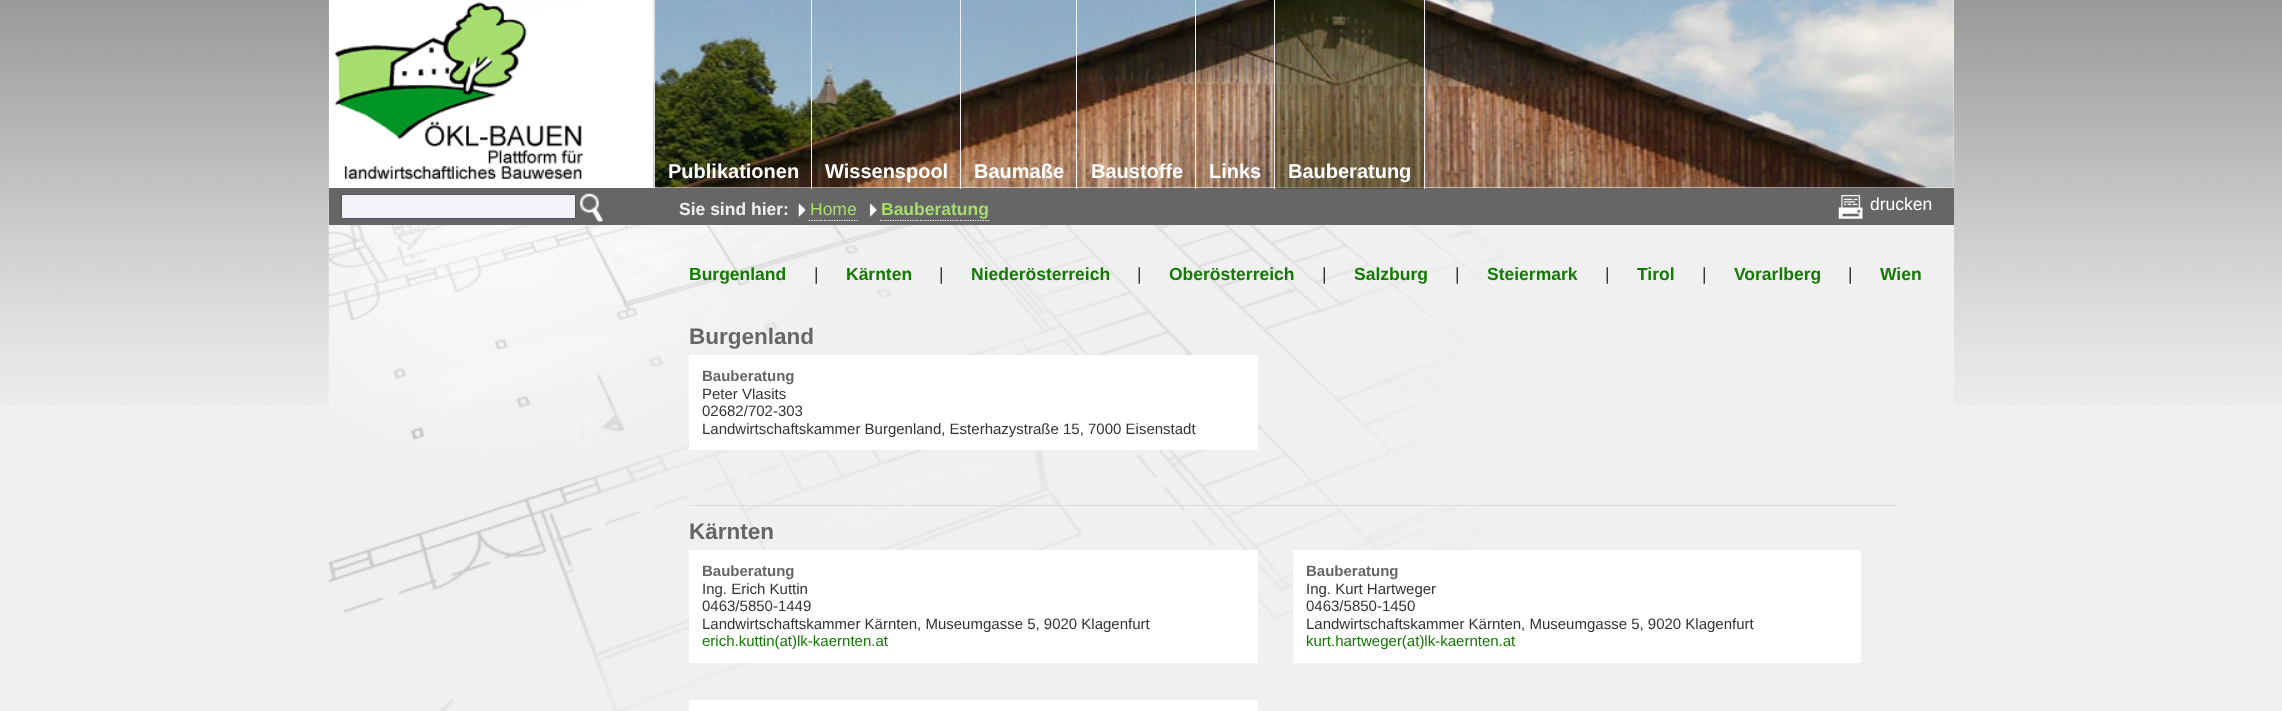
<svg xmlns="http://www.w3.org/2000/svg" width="2282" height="711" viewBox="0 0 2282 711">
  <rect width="100%" height="100%" fill="#f0f0f0"/>
  <image x="0" y="0" width="2282" height="406" href="img/1.png"/>
  <path d="M329 225h1625v181H329z" fill="#f0f0f0"/>
  <image x="328" y="200" width="1179" height="511" href="img/2.png"/>
  <path d="M329 0h325v188H329z" fill="#fff"/>
  <image x="328" y="0" width="256" height="179" href="img/3.png"/>
  <path d="M655 0h1299v188H655z" fill="#fff"/>
  <image x="653" y="0" width="1301" height="188" href="img/4.png"/>
  <path d="M654 0h1v188H654z" fill="#ddd"/>
  <path d="M329 188h1625v37H329z" fill="#666"/>
  <path d="M811 0h1v189H811z" fill="#f0f0f0"/>
  <path d="M960 0h1v189H960z" fill="#f0f0f0"/>
  <path d="M1076 0h1v189H1076z" fill="#f0f0f0"/>
  <path d="M1195 0h1v189H1195z" fill="#f0f0f0"/>
  <path d="M1274 0h1v189H1274z" fill="#f0f0f0"/>
  <path d="M1275 0h149v189H1275z" fill="#2730005c"/>
  <path d="M1424 0h1v189H1424z" fill="#f0f0f0"/>
  <path d="M341.5 194.5h234v24H341.5z" fill="#f2f3f8" stroke="#505567"/>
  <image x="579" y="193" width="24" height="29" href="img/5.png"/>
  <image x="798" y="203" width="8" height="14" href="img/6.png"/>
  <path d="M809 220.5H857.5" fill="none" stroke="#fff" stroke-width="1.2" stroke-dasharray="1.25 1.25"/>
  <image x="869" y="203" width="8" height="14" href="img/7.png"/>
  <path d="M880 220.5H990" fill="none" stroke="#fff" stroke-width="1.2" stroke-dasharray="1.25 1.25"/>
  <image x="1838" y="194" width="25" height="25" href="img/8.png"/>
  <path d="M689 355h569v95H689z" fill="#fff"/>
  <path d="M689 505h1209v1H689z" fill="#ddd"/>
  <path d="M689 550h569v113H689z" fill="#fff"/>
  <path d="M1293 550h568v113H1293z" fill="#fff"/>
  <path d="M689 700h569v11H689z" fill="#fff"/>
  <g font-family="Liberation Sans" font-size="20" font-weight="bold" fill="#fff">
    <text x="668" y="178">Publikationen</text>
    <text x="825" y="178">Wissenspool</text>
    <text x="974" y="178">Baumaße</text>
    <text x="1091" y="178">Baustoffe</text>
    <text x="1209" y="178">Links</text>
    <text x="1288" y="178">Bauberatung</text>
  </g>
  <text x="679" y="215" font-family="Liberation Sans" font-size="17.5" font-weight="bold" fill="#eee">Sie sind hier:</text>
  <text x="810" y="215" font-family="Liberation Sans" font-size="17.5" fill="#a5dd6e">Home</text>
  <text x="881" y="215" font-family="Liberation Sans" font-size="17.5" font-weight="bold" fill="#a5dd6e">Bauberatung</text>
  <text x="1870" y="210" font-family="Liberation Sans" font-size="17.5" fill="#fff">drucken</text>
  <text x="689" y="280" font-family="Liberation Sans" font-size="17.5" font-weight="bold" fill="#127a00">Burgenland</text>
  <text x="814" y="280" font-family="Liberation Sans" font-size="17.5" fill="#333">|</text>
  <text x="846" y="280" font-family="Liberation Sans" font-size="17.5" font-weight="bold" fill="#127a00">Kärnten</text>
  <text x="939" y="280" font-family="Liberation Sans" font-size="17.5" fill="#333">|</text>
  <text x="971" y="280" font-family="Liberation Sans" font-size="17.5" font-weight="bold" fill="#127a00">Niederösterreich</text>
  <text x="1137" y="280" font-family="Liberation Sans" font-size="17.5" fill="#333">|</text>
  <text x="1169" y="280" font-family="Liberation Sans" font-size="17.5" font-weight="bold" fill="#127a00">Oberösterreich</text>
  <text x="1322" y="280" font-family="Liberation Sans" font-size="17.5" fill="#333">|</text>
  <text x="1354" y="280" font-family="Liberation Sans" font-size="17.5" font-weight="bold" fill="#127a00">Salzburg</text>
  <text x="1455" y="280" font-family="Liberation Sans" font-size="17.5" fill="#333">|</text>
  <text x="1487" y="280" font-family="Liberation Sans" font-size="17.5" font-weight="bold" fill="#127a00">Steiermark</text>
  <text x="1605" y="280" font-family="Liberation Sans" font-size="17.5" fill="#333">|</text>
  <text x="1637" y="280" font-family="Liberation Sans" font-size="17.5" font-weight="bold" fill="#127a00">Tirol</text>
  <text x="1702" y="280" font-family="Liberation Sans" font-size="17.5" fill="#333">|</text>
  <text x="1734" y="280" font-family="Liberation Sans" font-size="17.5" font-weight="bold" fill="#127a00">Vorarlberg</text>
  <text x="1848" y="280" font-family="Liberation Sans" font-size="17.5" fill="#333">|</text>
  <text x="1880" y="280" font-family="Liberation Sans" font-size="17.5" font-weight="bold" fill="#127a00">Wien</text>
  <text x="689" y="344" font-family="Liberation Sans" font-size="22.5" font-weight="bold" fill="#666">Burgenland</text>
  <text x="702" y="381" font-family="Liberation Sans" font-size="15" font-weight="bold" fill="#666">Bauberatung</text>
  <g font-family="Liberation Sans" font-size="15" fill="#333">
    <text x="702" y="399">Peter Vlasits</text>
    <text x="702" y="416">02682/702-303</text>
    <text x="702" y="434">Landwirtschaftskammer Burgenland, Esterhazystraße 15, 7000 Eisenstadt</text>
  </g>
  <text x="689" y="539" font-family="Liberation Sans" font-size="22.5" font-weight="bold" fill="#666">Kärnten</text>
  <text x="702" y="576" font-family="Liberation Sans" font-size="15" font-weight="bold" fill="#666">Bauberatung</text>
  <g font-family="Liberation Sans" font-size="15" fill="#333">
    <text x="702" y="594">Ing. Erich Kuttin</text>
    <text x="702" y="611">0463/5850-1449</text>
    <text x="702" y="629">Landwirtschaftskammer Kärnten, Museumgasse 5, 9020 Klagenfurt</text>
  </g>
  <text x="702" y="646" font-family="Liberation Sans" font-size="15" fill="#127a00">erich.kuttin(at)lk-kaernten.at</text>
  <text x="1306" y="576" font-family="Liberation Sans" font-size="15" font-weight="bold" fill="#666">Bauberatung</text>
  <g font-family="Liberation Sans" font-size="15" fill="#333">
    <text x="1306" y="594">Ing. Kurt Hartweger</text>
    <text x="1306" y="611">0463/5850-1450</text>
    <text x="1306" y="629">Landwirtschaftskammer Kärnten, Museumgasse 5, 9020 Klagenfurt</text>
  </g>
  <text x="1306" y="646" font-family="Liberation Sans" font-size="15" fill="#127a00">kurt.hartweger(at)lk-kaernten.at</text>
</svg>
